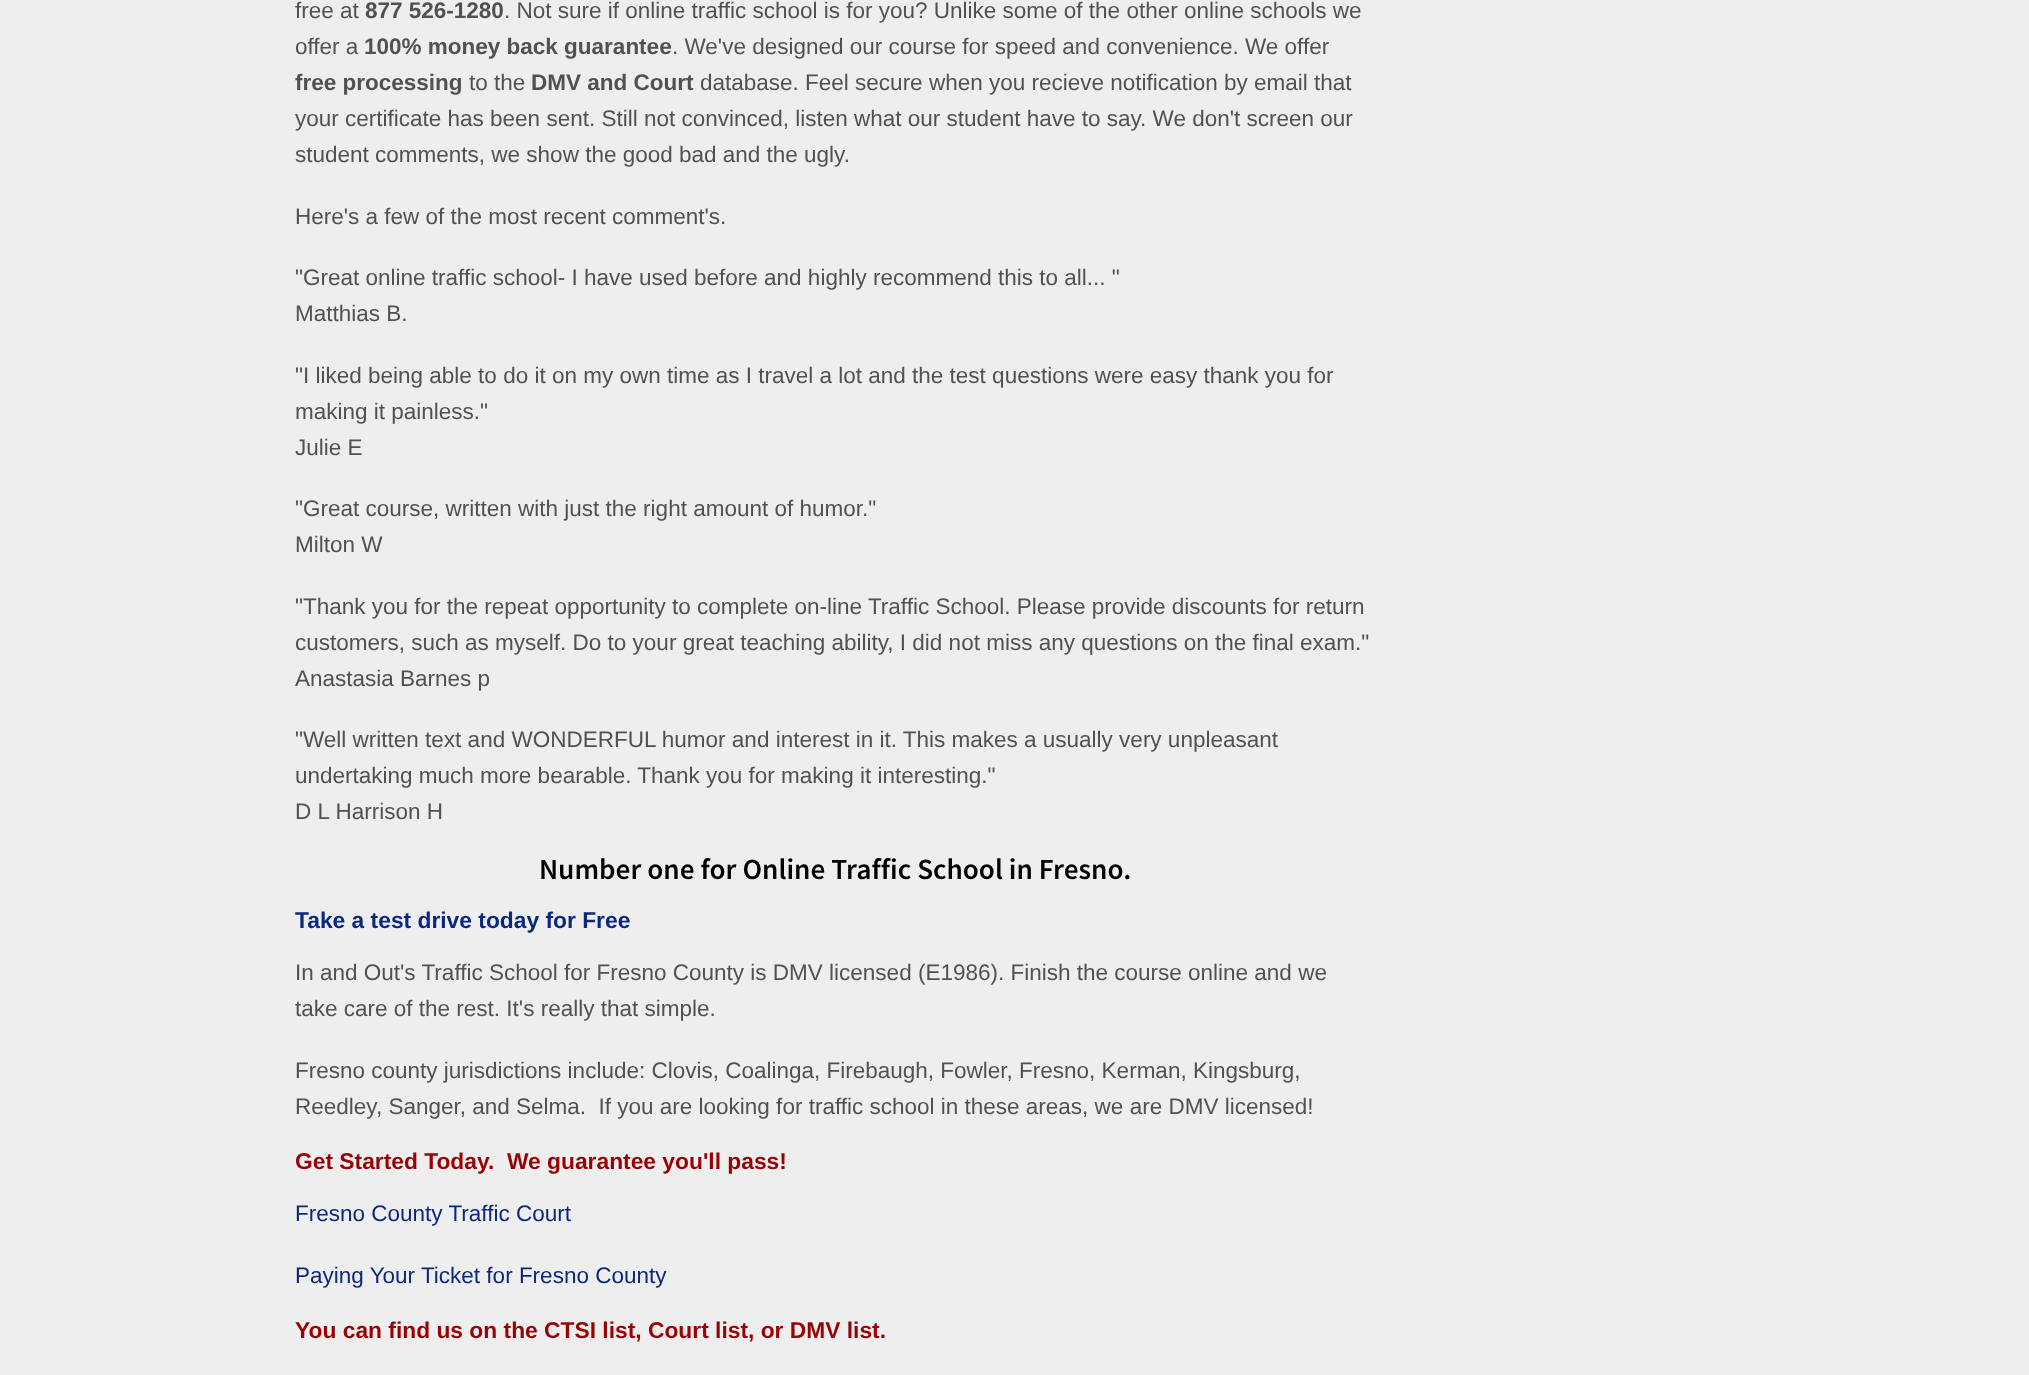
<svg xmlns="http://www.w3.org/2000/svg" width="2029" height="1375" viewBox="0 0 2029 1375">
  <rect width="100%" height="100%" fill="#eee"/>
  <text x="295" y="18" font-family="Liberation Sans" font-size="22.5" fill="#505153">free at</text>
  <text x="365" y="18" font-family="Liberation Sans" font-size="22.5" font-weight="bold" fill="#505153">877 526-1280</text>
  <g font-family="Liberation Sans" font-size="22.5" fill="#505153">
    <text x="504" y="18">. Not sure if online traffic school is for you? Unlike some of the other online schools we</text>
    <text x="295" y="54">offer a</text>
  </g>
  <text x="364" y="54" font-family="Liberation Sans" font-size="22.5" font-weight="bold" fill="#505153">100% money back guarantee</text>
  <text x="672" y="54" font-family="Liberation Sans" font-size="22.5" fill="#505153">. We've designed our course for speed and convenience. We offer</text>
  <text x="295" y="90" font-family="Liberation Sans" font-size="22.5" font-weight="bold" fill="#505153">free processing</text>
  <text x="469" y="90" font-family="Liberation Sans" font-size="22.5" fill="#505153">to the</text>
  <text x="531" y="90" font-family="Liberation Sans" font-size="22.5" font-weight="bold" fill="#505153">DMV and Court</text>
  <g font-family="Liberation Sans" font-size="22.5" fill="#505153">
    <text x="700" y="90">database. Feel secure when you recieve notification by email that</text>
    <text x="295" y="126">your certificate has been sent. Still not convinced, listen what our student have to say. We don't screen our</text>
    <text x="295" y="162">student comments, we show the good bad and the ugly.</text>
    <text x="295" y="224">Here's a few of the most recent comment's.</text>
    <text x="295" y="285">"Great online traffic school- I have used before and highly recommend this to all... "</text>
    <text x="295" y="321">Matthias B.</text>
    <text x="295" y="383">"I liked being able to do it on my own time as I travel a lot and the test questions were easy thank you for</text>
    <text x="295" y="419">making it painless."</text>
    <text x="295" y="455">Julie E</text>
    <text x="295" y="516">"Great course, written with just the right amount of humor."</text>
    <text x="295" y="552">Milton W</text>
    <text x="295" y="614">"Thank you for the repeat opportunity to complete on-line Traffic School. Please provide discounts for return</text>
    <text x="295" y="650">customers, such as myself. Do to your great teaching ability, I did not miss any questions on the final exam."</text>
    <text x="295" y="686">Anastasia Barnes p</text>
    <text x="295" y="747">"Well written text and WONDERFUL humor and interest in it. This makes a usually very unpleasant</text>
    <text x="295" y="783">undertaking much more bearable. Thank you for making it interesting."</text>
    <text x="295" y="819">D L Harrison H</text>
  </g>
  <text x="539" y="879" font-family="Source Sans Pro" font-size="29.25" font-weight="600" fill="#000">Number one for Online Traffic School in Fresno.</text>
  <text x="295" y="928" font-family="Liberation Sans" font-size="22.8" font-weight="bold" fill="#0c287d">Take a test drive today for Free</text>
  <g font-family="Liberation Sans" font-size="22.5" fill="#505153">
    <text x="295" y="980">In and Out's Traffic School for Fresno County is DMV licensed (E1986). Finish the course online and we</text>
    <text x="295" y="1016">take care of the rest. It's really that simple.</text>
    <text x="295" y="1078">Fresno county jurisdictions include: Clovis, Coalinga, Firebaugh, Fowler, Fresno, Kerman, Kingsburg,</text>
    <text x="295" y="1114" xml:space="preserve">Reedley, Sanger, and Selma.  If you are looking for traffic school in these areas, we are DMV licensed!</text>
  </g>
  <text x="295" y="1169" font-family="Liberation Sans" font-size="22.8" font-weight="bold" fill="#990204" xml:space="preserve">Get Started Today.  We guarantee you'll pass!</text>
  <g font-family="Liberation Sans" font-size="22.5" fill="#0c287d">
    <text x="295" y="1221">Fresno County Traffic Court</text>
    <text x="295" y="1283">Paying Your Ticket for Fresno County</text>
  </g>
  <text x="295" y="1338" font-family="Liberation Sans" font-size="22.8" font-weight="bold" fill="#990204">You can find us on the CTSI list, Court list, or DMV list.</text>
</svg>
